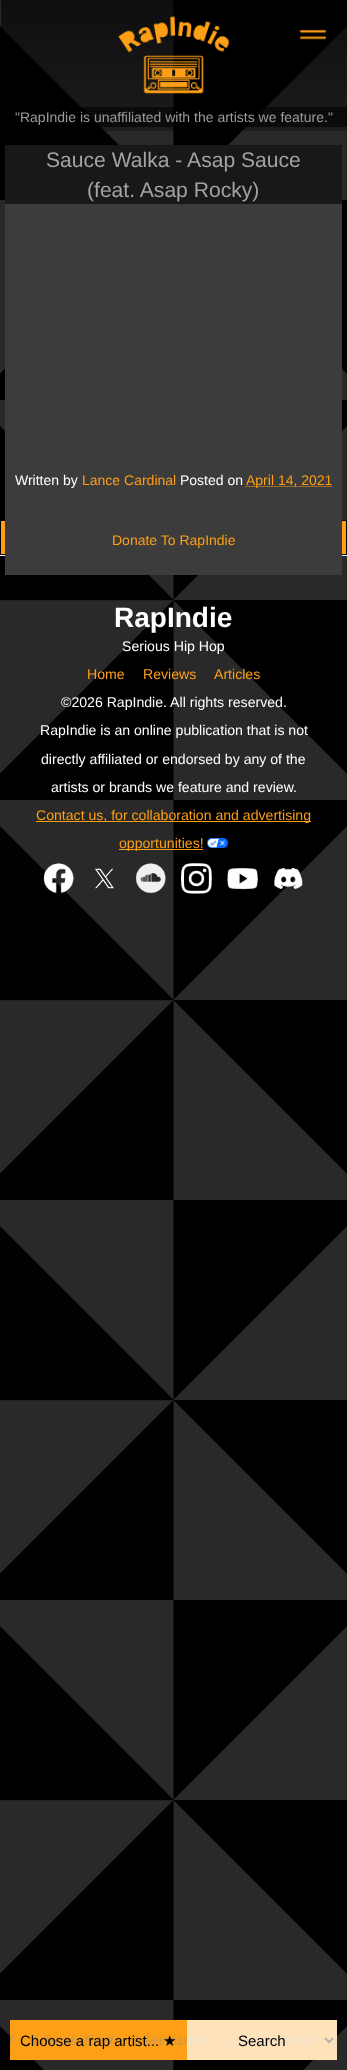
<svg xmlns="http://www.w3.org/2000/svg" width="347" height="2070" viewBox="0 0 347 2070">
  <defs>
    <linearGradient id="g1" gradientUnits="userSpaceOnUse" x1="174" y1="0" x2="174" y2="131"><stop offset="0" stop-color="#000" stop-opacity="0.5"/><stop offset="1" stop-color="#000" stop-opacity="0"/></linearGradient>
  </defs>
  <rect width="100%" height="100%" fill="#fff"/>
  <image x="0" y="0" width="347" height="2070" href="img/1.png"/>
  <path d="M1 0h346v131H1z" fill="#0000004d"/>
  <path d="M1 0h346v107H1z" fill="url(#g1)"/>
  <image x="299" y="29" width="27" height="11" href="img/2.png"/>
  <image x="118" y="16" width="112" height="78" href="img/3.png"/>
  <rect x="1" y="107" width="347" height="20" rx="2" fill="#00000099"/>
  <path d="M10 2020h327v40H10z" fill="#fe9f15"/>
  <image x="10" y="2034" width="327" height="11" href="img/4.png"/>
  <path d="M325 2038L329 2042L333 2038" fill="none" stroke="#000" stroke-width="2"/>
  <path d="M187 2020h150v40H187z" fill="#ffffffb3"/>
  <path d="M1 521h4v33H1z" fill="#fe9f15"/>
  <path d="M0.5 520.5h117v34H0.5z" fill="none" stroke="#000"/>
  <path d="M342 521h4v33H342z" fill="#fe9f15"/>
  <path d="M229.5 520.5h117v34H229.5z" fill="none" stroke="#000"/>
  <path d="M0 555h347v1H0z" fill="#fff"/>
  <path d="M5 204h337v371H5z" fill="#3c3c3c"/>
  <path d="M5 145h337v59H5z" fill="#181818"/>
  <path d="M245.5 486.5H332" fill="none" stroke="#fe9f15" stroke-dasharray="1 1"/>
  <path d="M36 821h275v1H36z" fill="#fe9f15"/>
  <path d="M119 849h84v1H119z" fill="#fe9f15"/>
  <image x="207" y="838" width="21" height="10" href="img/5.png"/>
  <image x="43" y="863" width="31" height="31" href="img/6.png"/>
  <image x="95" y="868" width="19" height="21" href="img/7.png"/>
  <image x="135" y="863" width="31" height="31" href="img/8.png"/>
  <image x="181" y="863" width="31" height="31" href="img/9.png"/>
  <image x="227" y="867" width="31" height="23" href="img/10.png"/>
  <image x="274" y="867" width="29" height="22" href="img/11.png"/>
  <text x="15" y="122" font-family="Liberation Sans" font-size="14" fill="#9b9b9b">"RapIndie is unaffiliated with the artists we feature."</text>
  <text x="20" y="2046" font-family="Liberation Sans" font-size="15" fill="#000">Choose a rap artist...</text>
  <text x="163" y="2046" font-family="DejaVu Sans" font-size="15" fill="#000">★</text>
  <text x="238" y="2046" font-family="Liberation Sans" font-size="15" fill="#000">Search</text>
  <g font-family="Liberation Sans" font-size="21.1" fill="#a3a3a3">
    <text x="46" y="167">Sauce Walka - Asap Sauce</text>
    <text x="87" y="197">(feat. Asap Rocky)</text>
  </g>
  <text x="15" y="485" font-family="Liberation Sans" font-size="14" fill="#fff">Written by</text>
  <text x="82" y="485" font-family="Liberation Sans" font-size="14" fill="#fe9f15">Lance Cardinal</text>
  <text x="180" y="485" font-family="Liberation Sans" font-size="14" fill="#fff">Posted on</text>
  <g font-family="Liberation Sans" font-size="14" fill="#fe9f15">
    <text x="246" y="485">April 14, 2021</text>
    <text x="112" y="545">Donate To RapIndie</text>
  </g>
  <text x="114" y="627" font-family="Liberation Sans" font-size="28" font-weight="bold" fill="#fff">RapIndie</text>
  <text x="122" y="651" font-family="Liberation Sans" font-size="14.1" fill="#fff">Serious Hip Hop</text>
  <g font-family="Liberation Sans" font-size="14.1" fill="#fe9f15">
    <text x="87" y="679">Home</text>
    <text x="143" y="679">Reviews</text>
    <text x="214" y="679">Articles</text>
  </g>
  <g font-family="Liberation Sans" font-size="14.1" fill="#fff">
    <text x="61" y="707">©2026 RapIndie. All rights reserved.</text>
    <text x="40" y="735">RapIndie is an online publication that is not</text>
    <text x="41" y="764">directly affiliated or endorsed by any of the</text>
    <text x="51" y="792">artists or brands we feature and review.</text>
  </g>
  <g font-family="Liberation Sans" font-size="14.1" fill="#fe9f15">
    <text x="36" y="820">Contact us, for collaboration and advertising</text>
    <text x="119" y="848">opportunities!</text>
  </g>
</svg>
